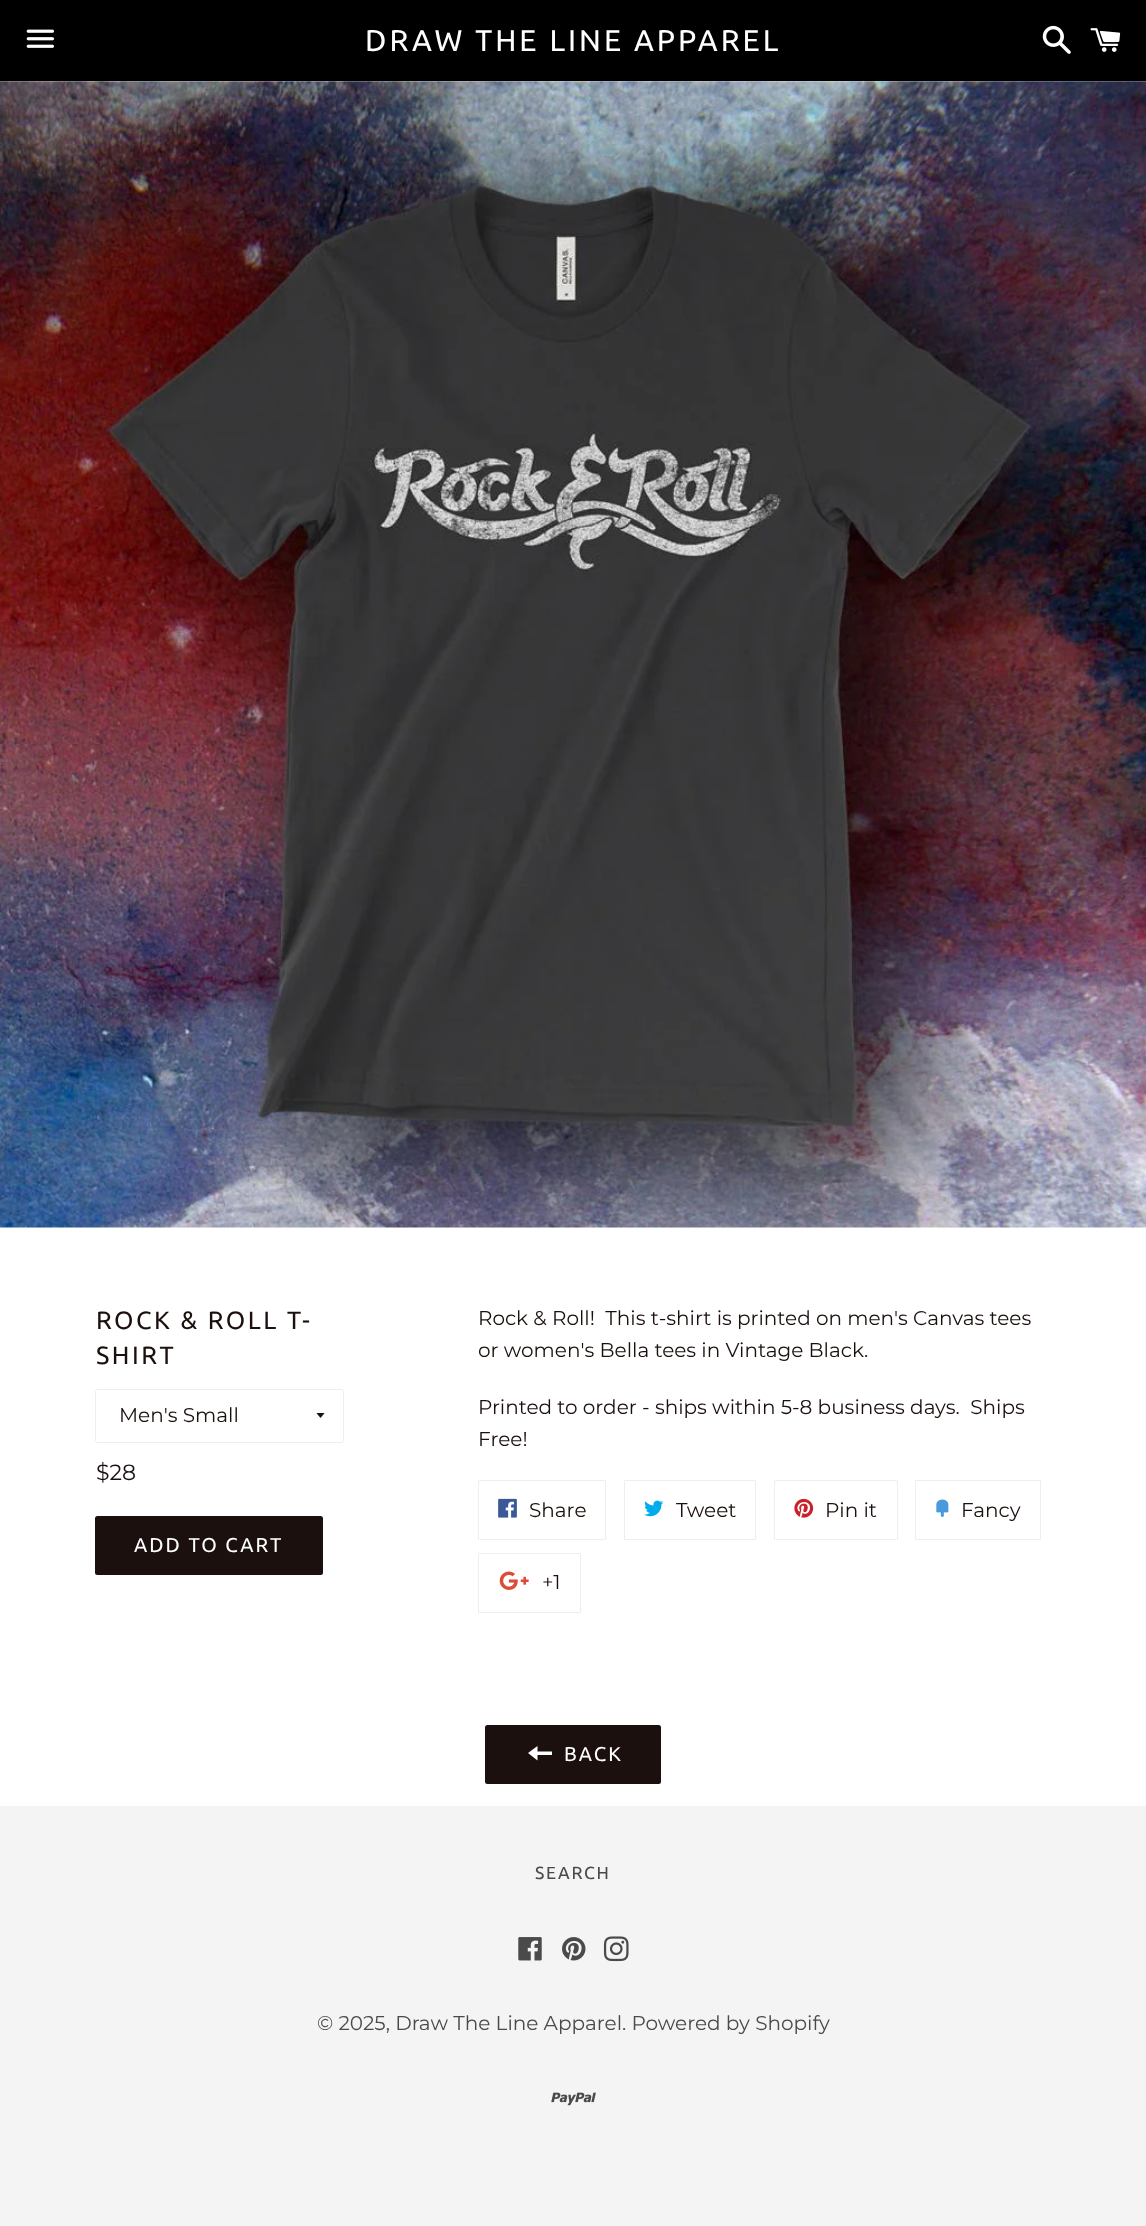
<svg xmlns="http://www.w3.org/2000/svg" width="1146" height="2226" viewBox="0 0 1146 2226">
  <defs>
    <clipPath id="clip1"><path d="M316 1413h10v6H316z"/></clipPath>
  </defs>
  <rect width="100%" height="100%" fill="#f4f4f4"/>
  <path d="M0 81h1146v1725H0z" fill="#fff"/>
  <path d="M0 0h1146v81H0z" fill="#000"/>
  <image x="26" y="29" width="28" height="19" href="img/1.png"/>
  <image x="1042" y="25" width="29" height="29" href="img/2.png"/>
  <image x="1090" y="28" width="31" height="24" href="img/3.png"/>
  <image x="0" y="81" width="1146" height="1147" href="img/4.png"/>
  <rect x="95.5" y="1389.5" width="248" height="53" rx="2" fill="none" stroke="#eceff1"/>
  <g clip-path="url(#clip1)">
    <path d="M316 1412.5L320.5 1418L325 1412.5Z" fill="#1b100e"/>
  </g>
  <rect x="95" y="1516" width="228" height="59" rx="2.5" fill="#1b100e"/>
  <path d="M478.5 1480.5h127v59H478.5z" fill="none" stroke="#eceff1"/>
  <image x="498" y="1498" width="19" height="20" href="img/5.png"/>
  <path d="M624.5 1480.5h131v59H624.5z" fill="none" stroke="#eceff1"/>
  <image x="644" y="1500" width="20" height="17" href="img/6.png"/>
  <path d="M774.5 1480.5h123v59H774.5z" fill="none" stroke="#eceff1"/>
  <image x="794" y="1498" width="20" height="20" href="img/7.png"/>
  <path d="M915.5 1480.5h125v59H915.5z" fill="none" stroke="#eceff1"/>
  <image x="936" y="1499" width="13" height="18" href="img/8.png"/>
  <path d="M478.5 1553.5h102v59H478.5z" fill="none" stroke="#eceff1"/>
  <image x="499" y="1571" width="30" height="19" href="img/9.png"/>
  <rect x="485" y="1725" width="176" height="59" rx="2.5" fill="#1b100e"/>
  <path d="M537.5 1751.5V1746L528 1753L537.5 1760.5V1755H552V1751.5Z" fill="#fff"/>
  <image x="518" y="1937" width="24" height="24" href="img/10.png"/>
  <image x="562" y="1937" width="24" height="24" href="img/11.png"/>
  <image x="603" y="1936" width="26" height="26" href="img/12.png"/>
  <image x="551" y="2092" width="45" height="14" href="img/13.png"/>
  <text x="365" y="51" font-family="Ubuntu" font-size="30" letter-spacing="3" fill="#fff">DRAW THE LINE APPAREL</text>
  <g font-family="Ubuntu" font-size="25" letter-spacing="2.5" fill="#1b100e">
    <text x="96" y="1329">ROCK &amp; ROLL T-</text>
    <text x="96" y="1364">SHIRT</text>
  </g>
  <text x="119" y="1422" font-family="Montserrat" font-size="20" font-weight="100" fill="#1b100e">Men's Small</text>
  <text x="96" y="1480" font-family="Montserrat" font-size="22" font-weight="100" fill="#1b100e">$28</text>
  <text x="134" y="1552" font-family="Ubuntu" font-size="20" letter-spacing="2" fill="#fff">ADD TO CART</text>
  <g font-family="Montserrat" font-size="20" font-weight="100" fill="#1b100e">
    <text x="478" y="1325" xml:space="preserve">Rock &amp; Roll!  This t-shirt is printed on men's Canvas tees</text>
    <text x="478" y="1357">or women's Bella tees in Vintage Black.</text>
    <text x="478" y="1414" xml:space="preserve">Printed to order - ships within 5-8 business days.  Ships</text>
    <text x="478" y="1446">Free!</text>
    <text x="529" y="1517">Share</text>
    <text x="676" y="1517">Tweet</text>
    <text x="825" y="1517">Pin it</text>
    <text x="961" y="1517">Fancy</text>
    <text x="542" y="1589">+1</text>
  </g>
  <text x="564" y="1761" font-family="Ubuntu" font-size="20" letter-spacing="2" fill="#fff">BACK</text>
  <text x="535" y="1879" font-family="Ubuntu" font-size="17.5" letter-spacing="1.75" fill="#4a4a4a">SEARCH</text>
  <text x="317" y="2030" font-family="Montserrat" font-size="20" font-weight="100" fill="#4a4a4a">© 2025, Draw The Line Apparel. Powered by Shopify</text>
</svg>
